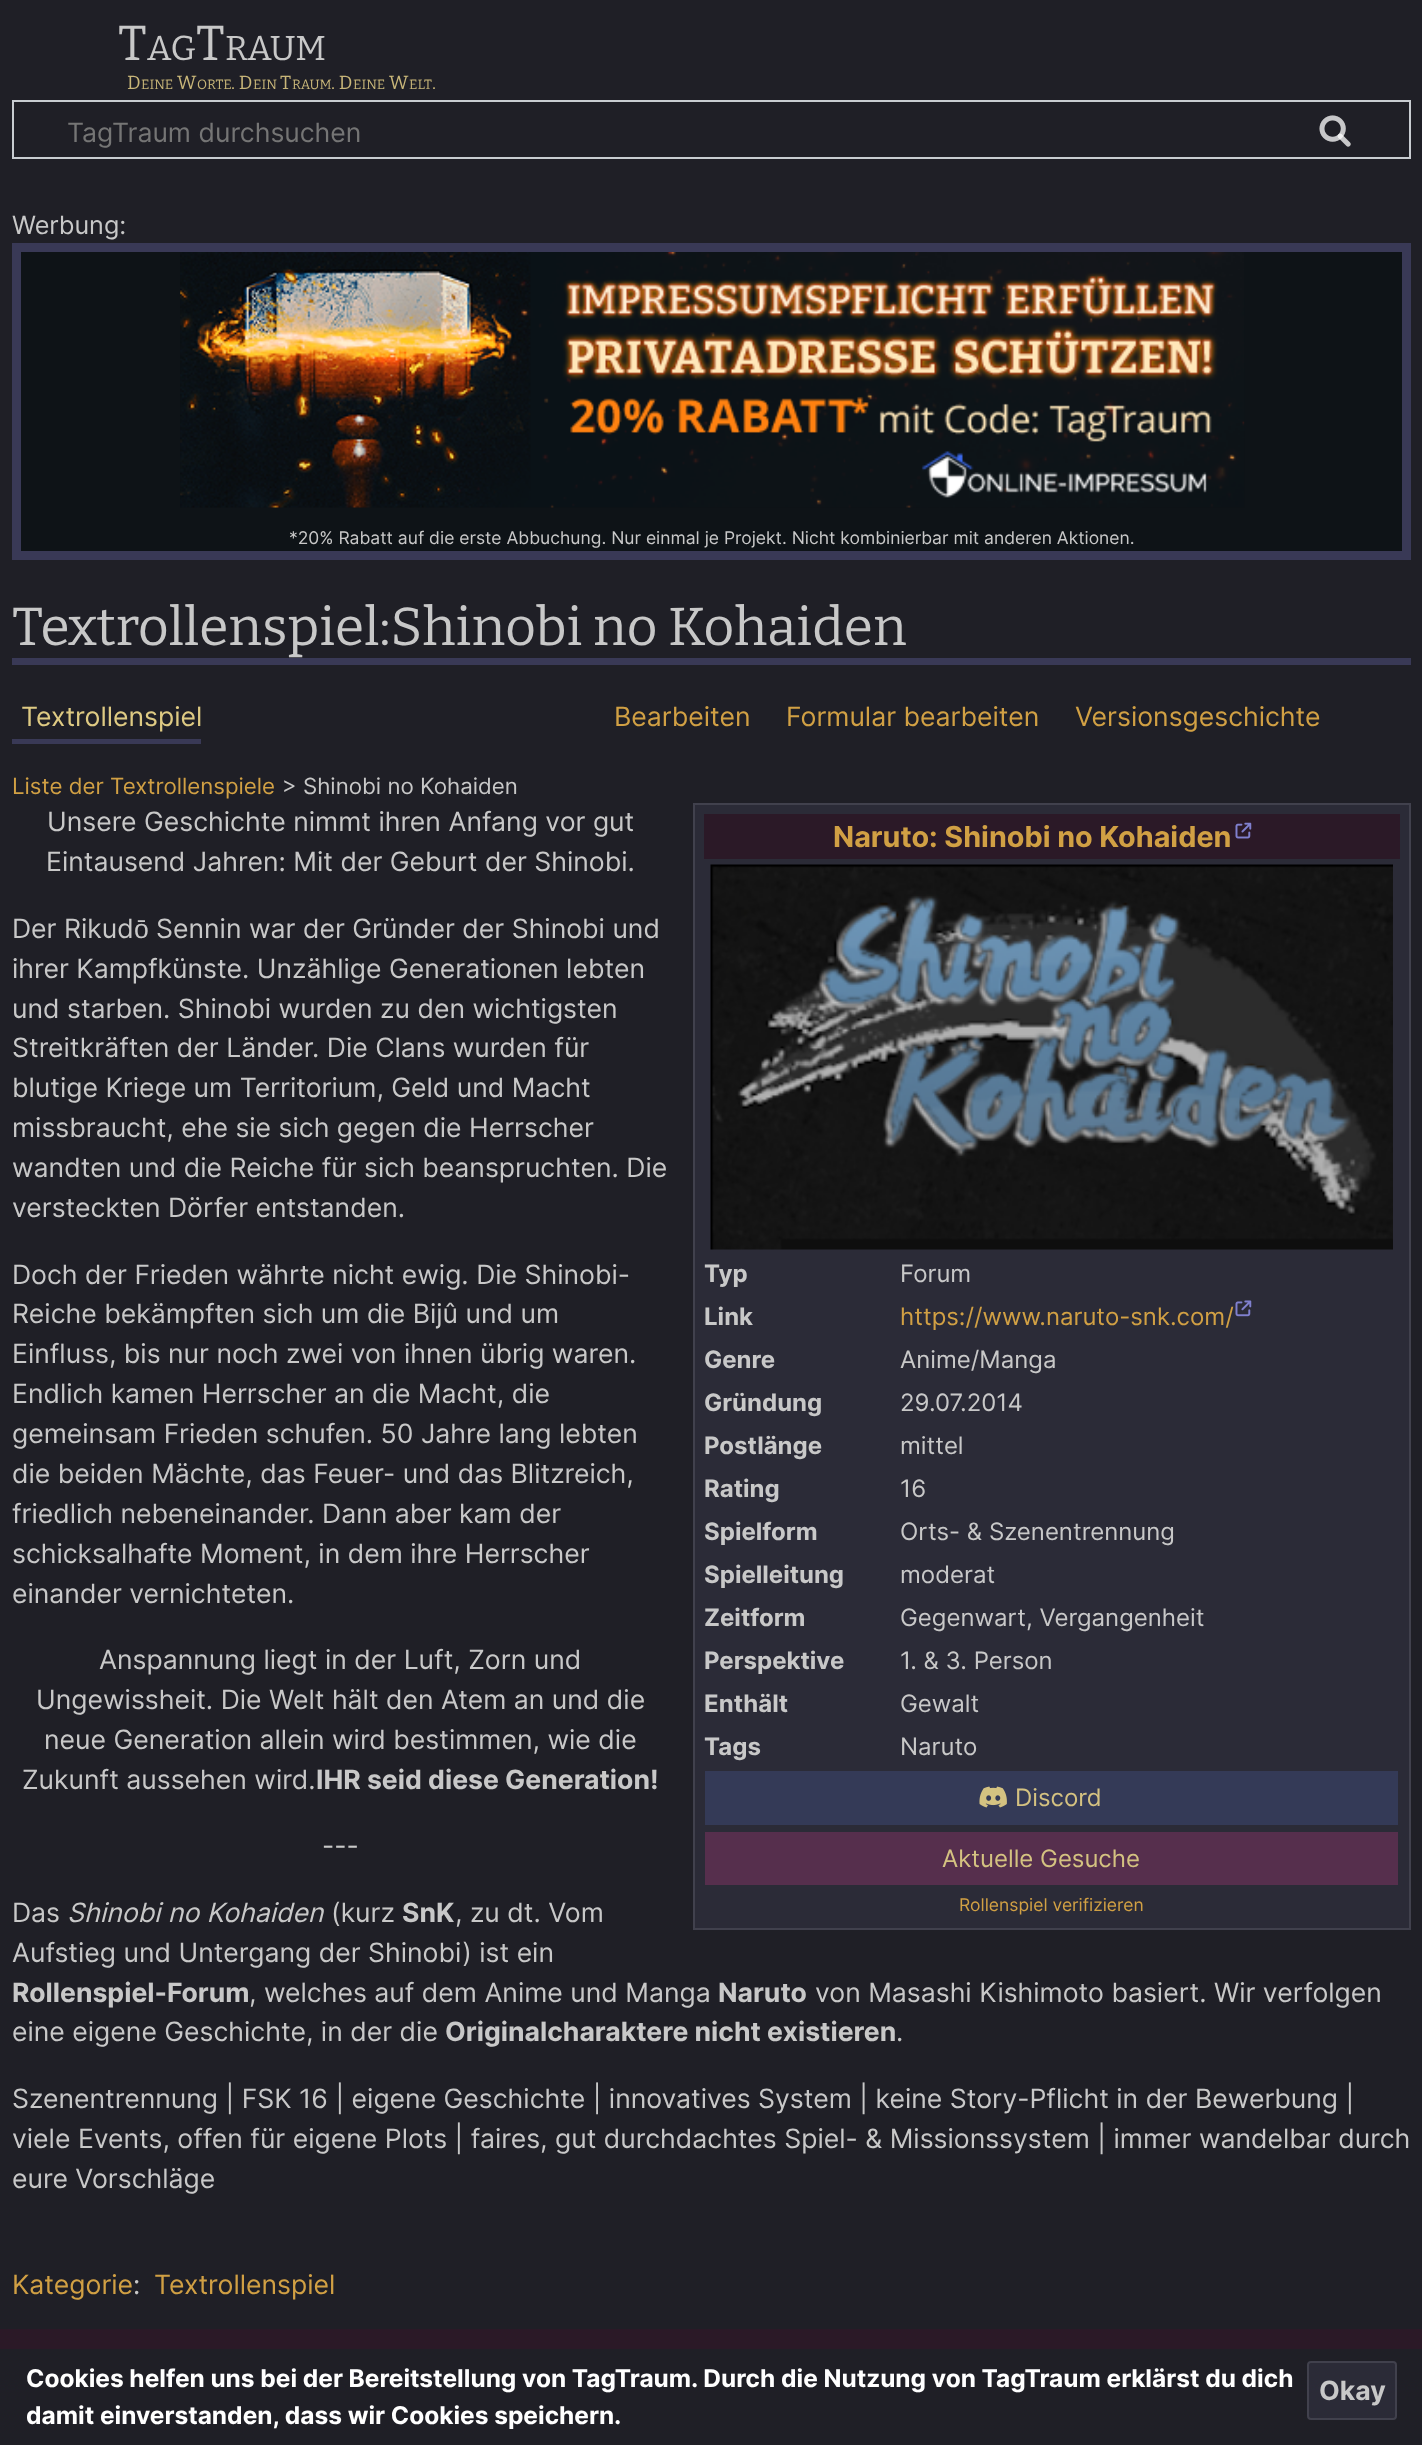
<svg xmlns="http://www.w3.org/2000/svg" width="1422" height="2445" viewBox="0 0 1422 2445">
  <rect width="100%" height="100%" fill="#1f1f26"/>
  <path d="M13 101h1397v57H13z" fill="none" stroke="#c8ccd1" stroke-width="2"/>
  <image x="1319" y="115" width="32" height="32" href="img/1.png"/>
  <image x="1319" y="115" width="32" height="32" href="img/2.png"/>
  <path d="M16.5 247.5h1390v308H16.5z" fill="#0e1317" stroke="#393956" stroke-width="9"/>
  <image x="180" y="252" width="1065" height="256" href="img/3.png"/>
  <path d="M12 658h1399v7H12z" fill="#393956"/>
  <path d="M12 739h189v5H12z" fill="#393956"/>
  <path d="M694 804h716v1125H694z" fill="#2b2b37" stroke="#41414d" stroke-width="2"/>
  <path d="M704 814h696v45H704z" fill="#2b1927"/>
  <image x="1235" y="822" width="17" height="17" href="img/4.png"/>
  <image x="710" y="864" width="683" height="386" href="img/5.png"/>
  <image x="1235" y="1300" width="17" height="17" href="img/6.png"/>
  <path d="M705 1771h693v54H705z" fill="#343a57"/>
  <image x="979" y="1786" width="28" height="22" href="img/7.png"/>
  <path d="M705 1832h693v53H705z" fill="#562f4d"/>
  <rect x="1308" y="2362" width="88" height="57" rx="3" fill="#2b2b37" stroke="#41414d" stroke-width="2"/>
  <path d="M0 2329h1422v20H0z" fill="#2b1927"/>
  <text x="118" y="60" font-family="Bitter" font-size="49" font-weight="100" fill="#c8c8c8">T</text>
  <text x="147" y="60" font-family="Bitter" font-size="34.5" font-weight="100" fill="#c8c8c8">AG</text>
  <text x="196" y="60" font-family="Bitter" font-size="49" font-weight="100" fill="#c8c8c8">T</text>
  <text x="225" y="60" font-family="Bitter" font-size="34.5" font-weight="100" fill="#c8c8c8">RAUM</text>
  <text x="127" y="89" font-family="Bitter" font-size="19" font-weight="100" fill="#c8b679">D</text>
  <text x="141" y="89" font-family="Bitter" font-size="13.5" font-weight="100" fill="#c8b679">EINE</text>
  <text x="177" y="89" font-family="Bitter" font-size="19" font-weight="100" fill="#c8b679">W</text>
  <text x="197" y="89" font-family="Bitter" font-size="13.5" font-weight="100" fill="#c8b679">ORTE</text>
  <text x="231" y="89" font-family="Bitter" font-size="19" font-weight="100" fill="#c8b679">. D</text>
  <text x="253" y="89" font-family="Bitter" font-size="13.5" font-weight="100" fill="#c8b679">EIN</text>
  <text x="280" y="89" font-family="Bitter" font-size="19" font-weight="100" fill="#c8b679">T</text>
  <text x="292" y="89" font-family="Bitter" font-size="13.5" font-weight="100" fill="#c8b679">RAUM</text>
  <text x="331" y="89" font-family="Bitter" font-size="19" font-weight="100" fill="#c8b679">. D</text>
  <text x="353" y="89" font-family="Bitter" font-size="13.5" font-weight="100" fill="#c8b679">EINE</text>
  <text x="389" y="89" font-family="Bitter" font-size="19" font-weight="100" fill="#c8b679">W</text>
  <text x="409" y="89" font-family="Bitter" font-size="13.5" font-weight="100" fill="#c8b679">ELT</text>
  <text x="432" y="89" font-family="Bitter" font-size="19" font-weight="100" fill="#c8b679">.</text>
  <text x="67" y="142" font-family="Inter" font-size="26.6" fill="#757575">TagTraum durchsuchen</text>
  <text x="12" y="234" font-family="Inter" font-size="25.25" fill="#c8c8c8">Werbung:</text>
  <text x="289" y="544" font-family="Inter" font-size="17.5" fill="#c8c8c8">*20% Rabatt auf die erste Abbuchung. Nur einmal je Projekt. Nicht kombinierbar mit anderen Aktionen.</text>
  <text x="12" y="645" font-family="Bitter" font-size="53.25" font-weight="100" fill="#c8c8c8">Textrollenspiel:Shinobi no Kohaiden</text>
  <text x="21" y="726" font-family="Inter" font-size="26.6" fill="#deca83">Textrollenspiel</text>
  <g font-family="Inter" font-size="26.6" fill="#d1a044">
    <text x="614" y="726">Bearbeiten</text>
    <text x="786" y="726">Formular bearbeiten</text>
    <text x="1075" y="726">Versionsgeschichte</text>
  </g>
  <text x="12" y="794" font-family="Inter" font-size="22.3" fill="#d1a044">Liste der Textrollenspiele</text>
  <text x="282" y="794" font-family="Inter" font-size="22.3" fill="#c8c8c8">&gt; Shinobi no Kohaiden</text>
  <g font-family="Inter" font-size="26.6" fill="#c8c8c8">
    <text x="47" y="831">Unsere Geschichte nimmt ihren Anfang vor gut</text>
    <text x="46" y="871">Eintausend Jahren: Mit der Geburt der Shinobi.</text>
  </g>
  <text x="833" y="847" font-family="Inter" font-size="28.75" font-weight="bold" fill="#d1a044">Naruto: Shinobi no Kohaiden</text>
  <text x="704" y="1282" font-family="Inter" font-size="24" font-weight="bold" fill="#c8c8c8">Typ</text>
  <text x="900" y="1282" font-family="Inter" font-size="24" fill="#c8c8c8">Forum</text>
  <text x="704" y="1325" font-family="Inter" font-size="24" font-weight="bold" fill="#c8c8c8">Link</text>
  <text x="900" y="1325" font-family="Inter" font-size="24" fill="#d1a044">https://www.naruto-snk.com/</text>
  <text x="704" y="1368" font-family="Inter" font-size="24" font-weight="bold" fill="#c8c8c8">Genre</text>
  <text x="900" y="1368" font-family="Inter" font-size="24" fill="#c8c8c8">Anime/Manga</text>
  <text x="704" y="1411" font-family="Inter" font-size="24" font-weight="bold" fill="#c8c8c8">Gründung</text>
  <text x="900" y="1411" font-family="Inter" font-size="24" fill="#c8c8c8">29.07.2014</text>
  <text x="704" y="1454" font-family="Inter" font-size="24" font-weight="bold" fill="#c8c8c8">Postlänge</text>
  <text x="900" y="1454" font-family="Inter" font-size="24" fill="#c8c8c8">mittel</text>
  <text x="704" y="1497" font-family="Inter" font-size="24" font-weight="bold" fill="#c8c8c8">Rating</text>
  <text x="900" y="1497" font-family="Inter" font-size="24" fill="#c8c8c8">16</text>
  <text x="704" y="1540" font-family="Inter" font-size="24" font-weight="bold" fill="#c8c8c8">Spielform</text>
  <text x="900" y="1540" font-family="Inter" font-size="24" fill="#c8c8c8">Orts- &amp; Szenentrennung</text>
  <text x="704" y="1583" font-family="Inter" font-size="24" font-weight="bold" fill="#c8c8c8">Spielleitung</text>
  <text x="900" y="1583" font-family="Inter" font-size="24" fill="#c8c8c8">moderat</text>
  <text x="704" y="1626" font-family="Inter" font-size="24" font-weight="bold" fill="#c8c8c8">Zeitform</text>
  <text x="900" y="1626" font-family="Inter" font-size="24" fill="#c8c8c8">Gegenwart, Vergangenheit</text>
  <text x="704" y="1669" font-family="Inter" font-size="24" font-weight="bold" fill="#c8c8c8">Perspektive</text>
  <text x="900" y="1669" font-family="Inter" font-size="24" fill="#c8c8c8">1. &amp; 3. Person</text>
  <text x="704" y="1712" font-family="Inter" font-size="24" font-weight="bold" fill="#c8c8c8">Enthält</text>
  <text x="900" y="1712" font-family="Inter" font-size="24" fill="#c8c8c8">Gewalt</text>
  <text x="704" y="1755" font-family="Inter" font-size="24" font-weight="bold" fill="#c8c8c8">Tags</text>
  <text x="900" y="1755" font-family="Inter" font-size="24" fill="#c8c8c8">Naruto</text>
  <g font-family="Inter" font-size="24" fill="#d4c281">
    <text x="1015" y="1806">Discord</text>
    <text x="942" y="1867">Aktuelle Gesuche</text>
  </g>
  <text x="959" y="1911" font-family="Inter" font-size="17.5" fill="#d1a044">Rollenspiel verifizieren</text>
  <text x="12" y="938" font-family="Inter" font-size="26.6" fill="#c8c8c8">Der Rikud</text>
  <text x="134" y="938" font-family="Liberation Sans" font-size="26.6" fill="#c8c8c8">ō</text>
  <g font-family="Inter" font-size="26.6" fill="#c8c8c8">
    <text x="156" y="938">Sennin war der Gründer der Shinobi und</text>
    <text x="12" y="978">ihrer Kampfkünste. Unzählige Generationen lebten</text>
    <text x="12" y="1018">und starben. Shinobi wurden zu den wichtigsten</text>
    <text x="12" y="1057">Streitkräften der Länder. Die Clans wurden für</text>
    <text x="12" y="1097">blutige Kriege um Territorium, Geld und Macht</text>
    <text x="12" y="1137">missbraucht, ehe sie sich gegen die Herrscher</text>
    <text x="12" y="1177">wandten und die Reiche für sich beanspruchten. Die</text>
    <text x="12" y="1217">versteckten Dörfer entstanden.</text>
    <text x="12" y="1284">Doch der Frieden währte nicht ewig. Die Shinobi-</text>
    <text x="12" y="1323">Reiche bekämpften sich um die Bijû und um</text>
    <text x="12" y="1363">Einfluss, bis nur noch zwei von ihnen übrig waren.</text>
    <text x="12" y="1403">Endlich kamen Herrscher an die Macht, die</text>
    <text x="12" y="1443">gemeinsam Frieden schufen. 50 Jahre lang lebten</text>
    <text x="12" y="1483">die beiden Mächte, das Feuer- und das Blitzreich,</text>
    <text x="12" y="1523">friedlich nebeneinander. Dann aber kam der</text>
    <text x="12" y="1563">schicksalhafte Moment, in dem ihre Herrscher</text>
    <text x="12" y="1603">einander vernichteten.</text>
    <text x="99" y="1669">Anspannung liegt in der Luft, Zorn und</text>
    <text x="36" y="1709">Ungewissheit. Die Welt hält den Atem an und die</text>
    <text x="44" y="1749">neue Generation allein wird bestimmen, wie die</text>
    <text x="22" y="1789">Zukunft aussehen wird.</text>
  </g>
  <text x="316" y="1789" font-family="Inter" font-size="26.6" font-weight="bold" fill="#c8c8c8">IHR seid diese Generation!</text>
  <g font-family="Inter" font-size="26.6" fill="#c8c8c8">
    <text x="322" y="1855">---</text>
    <text x="12" y="1922">Das</text>
  </g>
  <text x="67" y="1922" font-family="Inter" font-size="26.6" font-style="italic" fill="#c8c8c8">Shinobi no Kohaiden</text>
  <text x="331" y="1922" font-family="Inter" font-size="26.6" fill="#c8c8c8">(kurz</text>
  <text x="402" y="1922" font-family="Inter" font-size="26.6" font-weight="bold" fill="#c8c8c8">SnK</text>
  <g font-family="Inter" font-size="26.6" fill="#c8c8c8">
    <text x="455" y="1922">, zu dt. Vom</text>
    <text x="12" y="1962">Aufstieg und Untergang der Shinobi) ist ein</text>
  </g>
  <text x="12" y="2002" font-family="Inter" font-size="26.6" font-weight="bold" fill="#c8c8c8">Rollenspiel-Forum</text>
  <text x="249" y="2002" font-family="Inter" font-size="26.6" fill="#c8c8c8">, welches auf dem Anime und Manga</text>
  <text x="718" y="2002" font-family="Inter" font-size="26.6" font-weight="bold" fill="#c8c8c8">Naruto</text>
  <g font-family="Inter" font-size="26.6" fill="#c8c8c8">
    <text x="815" y="2002">von Masashi Kishimoto basiert. Wir verfolgen</text>
    <text x="12" y="2041">eine eigene Geschichte, in der die</text>
  </g>
  <text x="445" y="2041" font-family="Inter" font-size="26.6" font-weight="bold" fill="#c8c8c8">Originalcharaktere nicht existieren</text>
  <g font-family="Inter" font-size="26.6" fill="#c8c8c8">
    <text x="896" y="2041">.</text>
    <text x="12" y="2108">Szenentrennung | FSK 16 | eigene Geschichte | innovatives System | keine Story-Pflicht in der Bewerbung |</text>
    <text x="12" y="2148">viele Events, offen für eigene Plots | faires, gut durchdachtes Spiel- &amp; Missionssystem | immer wandelbar durch</text>
    <text x="12" y="2188">eure Vorschläge</text>
  </g>
  <text x="12" y="2294" font-family="Inter" font-size="26.6" fill="#d1a044">Kategorie</text>
  <text x="133" y="2294" font-family="Inter" font-size="26.6" fill="#c8c8c8">:</text>
  <text x="154" y="2294" font-family="Inter" font-size="26.6" fill="#d1a044">Textrollenspiel</text>
  <g font-family="Inter" font-size="24.47" font-weight="bold" fill="#fff">
    <text x="26" y="2387">Cookies helfen uns bei der Bereitstellung von TagTraum. Durch die Nutzung von TagTraum erklärst du dich</text>
    <text x="26" y="2424">damit einverstanden, dass wir Cookies speichern.</text>
  </g>
  <text x="1319" y="2400" font-family="Inter" font-size="26.6" font-weight="bold" fill="#c8c8c8">Okay</text>
</svg>
